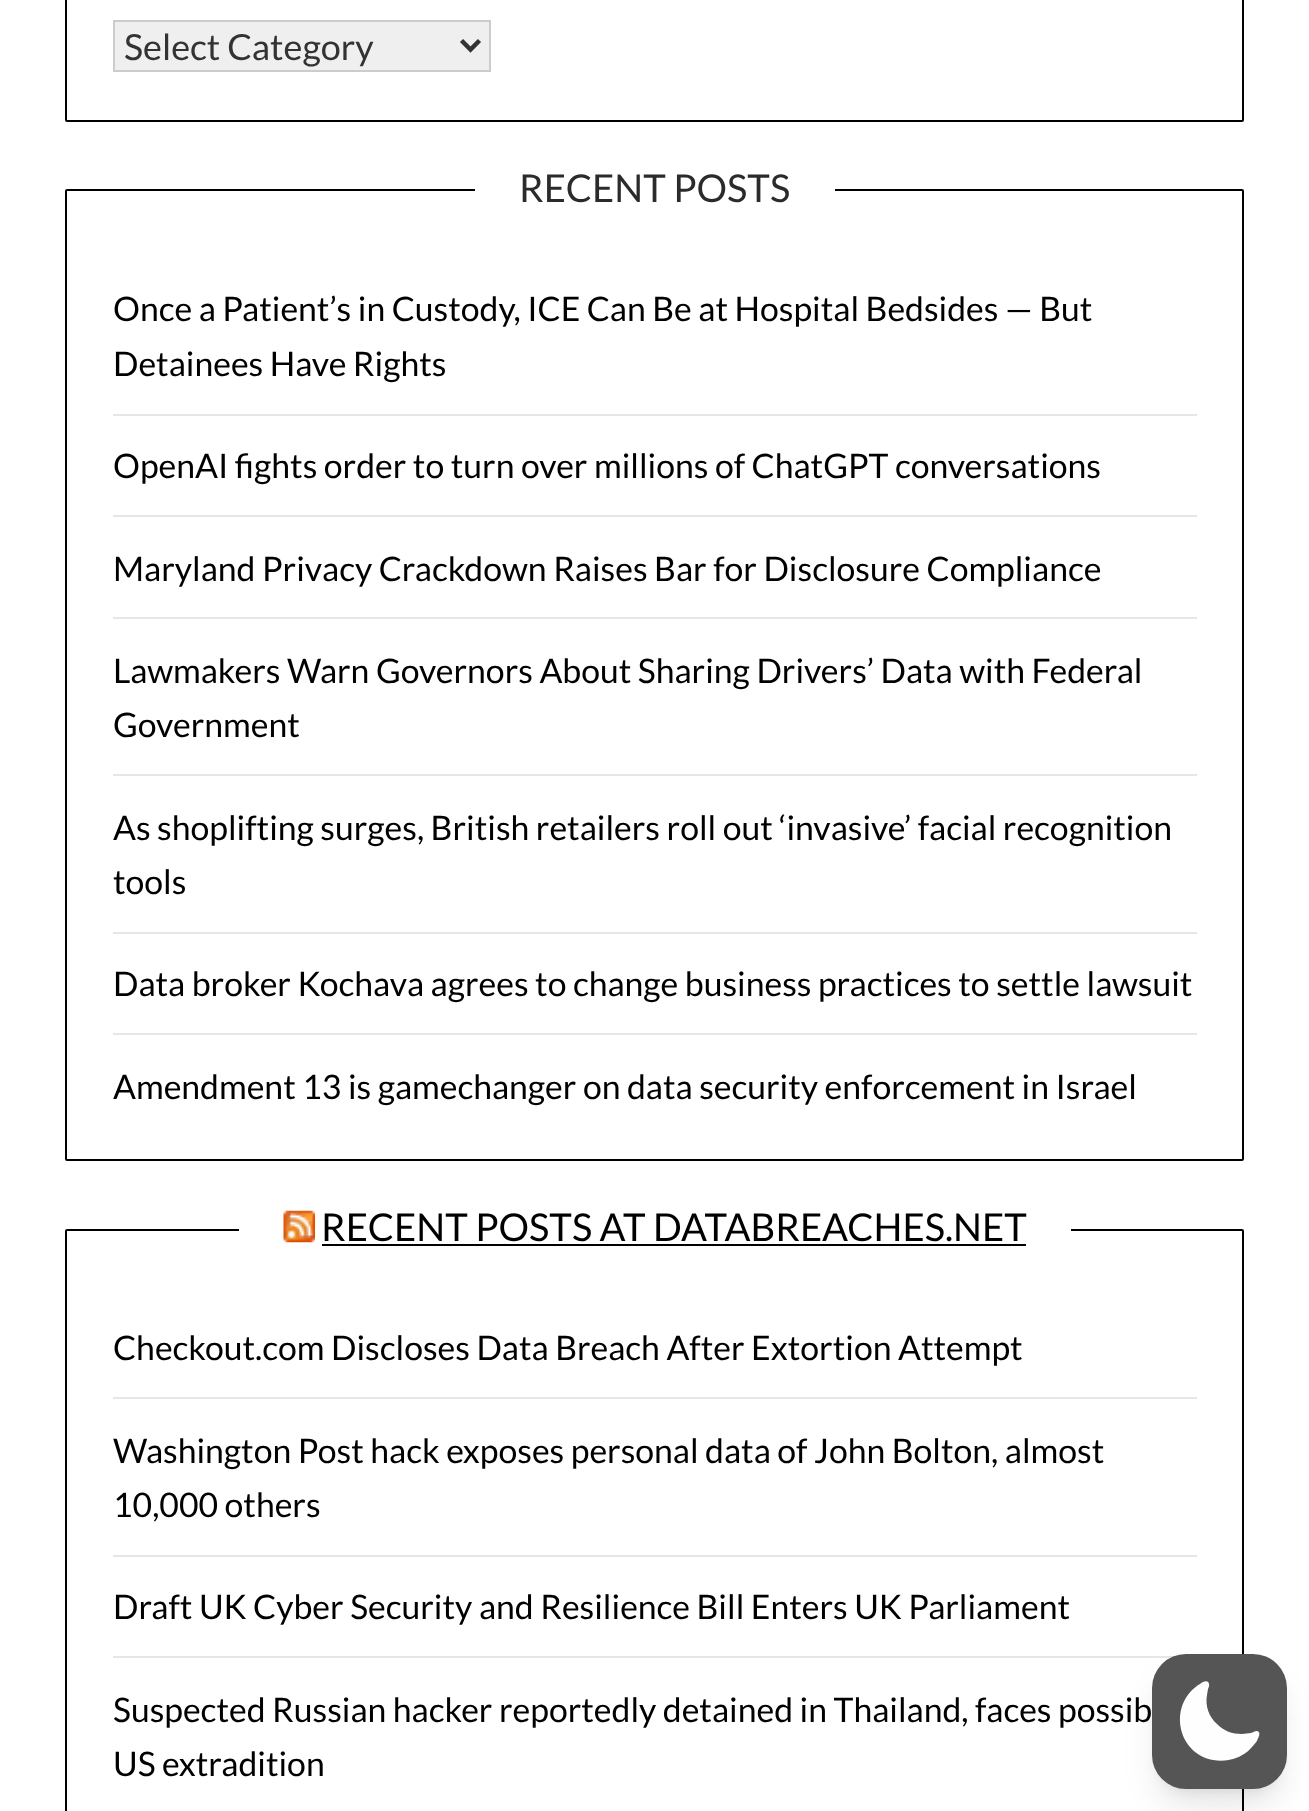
<svg xmlns="http://www.w3.org/2000/svg" width="1309" height="1811" viewBox="0 0 1309 1811">
  <rect width="100%" height="100%" fill="#fff"/>
  <rect x="66" y="-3" width="1177" height="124" rx="1" fill="none" stroke="#000" stroke-width="2"/>
  <path d="M114 21h376v50H114z" fill="#efefef" stroke="#ccc" stroke-width="2"/>
  <path d="M461.5 40.5L470.5 49.5L479.5 40.5" fill="none" stroke="#333" stroke-width="4.5"/>
  <rect x="66" y="190" width="1177" height="970" rx="1" fill="none" stroke="#000" stroke-width="2"/>
  <path d="M475 189h360v2H475z" fill="#fff"/>
  <path d="M113 414h1084v2H113z" fill="#e6e6e6"/>
  <path d="M113 515h1084v2H113z" fill="#e6e6e6"/>
  <path d="M113 617h1084v2H113z" fill="#e6e6e6"/>
  <path d="M113 774h1084v2H113z" fill="#e6e6e6"/>
  <path d="M113 932h1084v2H113z" fill="#e6e6e6"/>
  <path d="M113 1033h1084v2H113z" fill="#e6e6e6"/>
  <rect x="66" y="1230" width="1177" height="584" rx="1" fill="none" stroke="#000" stroke-width="2"/>
  <path d="M239 1229h832v2H239z" fill="#fff"/>
  <image x="283" y="1210" width="32" height="33" href="img/1.png"/>
  <path d="M322 1244h704v2H322z" fill="#000"/>
  <path d="M113 1397h1084v2H113z" fill="#e6e6e6"/>
  <path d="M113 1555h1084v2H113z" fill="#e6e6e6"/>
  <path d="M113 1656h1062v2H113z" fill="#e6e6e6"/>
  <rect x="1161" y="1672" width="117" height="117" rx="25" fill="#0000001a" filter="blur(7px)"/>
  <rect x="1159" y="1683" width="121" height="122" rx="27" fill="#0000001a" filter="blur(17px)"/>
  <rect x="1152" y="1654" width="135" height="135" rx="34" fill="#555"/>
  <path d="M1208 1682C1210 1684 1209 1687 1208 1689L1207 1695C1205 1706 1209 1717 1217 1724C1224 1731 1232 1734 1242 1734L1251 1733L1256 1731C1263 1731 1257 1740 1257 1741C1253 1746 1249 1751 1244 1754C1235 1760 1224 1762 1213 1760C1176 1753 1168 1703 1200 1684C1201 1683 1206 1680 1208 1682Z" fill="#fefefe" fill-rule="evenodd"/>
  <text x="124" y="60" font-family="Lato" font-size="36" fill="#333">Select Category</text>
  <text x="519" y="202" font-family="Lato" font-size="38.25" fill="#2b2b2b">RECENT POSTS</text>
  <g font-family="Lato" font-size="33.75" fill="#000">
    <text x="113" y="321">Once a Patient’s in Custody, ICE Can Be at Hospital Bedsides — But</text>
    <text x="113" y="376">Detainees Have Rights</text>
    <text x="113" y="478">OpenAI fights order to turn over millions of ChatGPT conversations</text>
    <text x="113" y="581">Maryland Privacy Crackdown Raises Bar for Disclosure Compliance</text>
    <text x="113" y="683">Lawmakers Warn Governors About Sharing Drivers’ Data with Federal</text>
    <text x="113" y="737">Government</text>
    <text x="113" y="840">As shoplifting surges, British retailers roll out ‘invasive’ facial recognition</text>
    <text x="113" y="894">tools</text>
    <text x="113" y="996">Data broker Kochava agrees to change business practices to settle lawsuit</text>
    <text x="113" y="1099">Amendment 13 is gamechanger on data security enforcement in Israel</text>
  </g>
  <text x="321" y="1241" font-family="Lato" font-size="38.25" fill="#000">RECENT POSTS AT DATABREACHES.NET</text>
  <g font-family="Lato" font-size="33.75" fill="#000">
    <text x="113" y="1360">Checkout.com Discloses Data Breach After Extortion Attempt</text>
    <text x="113" y="1463">Washington Post hack exposes personal data of John Bolton, almost</text>
    <text x="113" y="1517">10,000 others</text>
    <text x="113" y="1619">Draft UK Cyber Security and Resilience Bill Enters UK Parliament</text>
    <text x="113" y="1722">Suspected Russian hacker reportedly detained in Thailand, faces possib</text>
    <text x="113" y="1776">US extradition</text>
  </g>
</svg>
